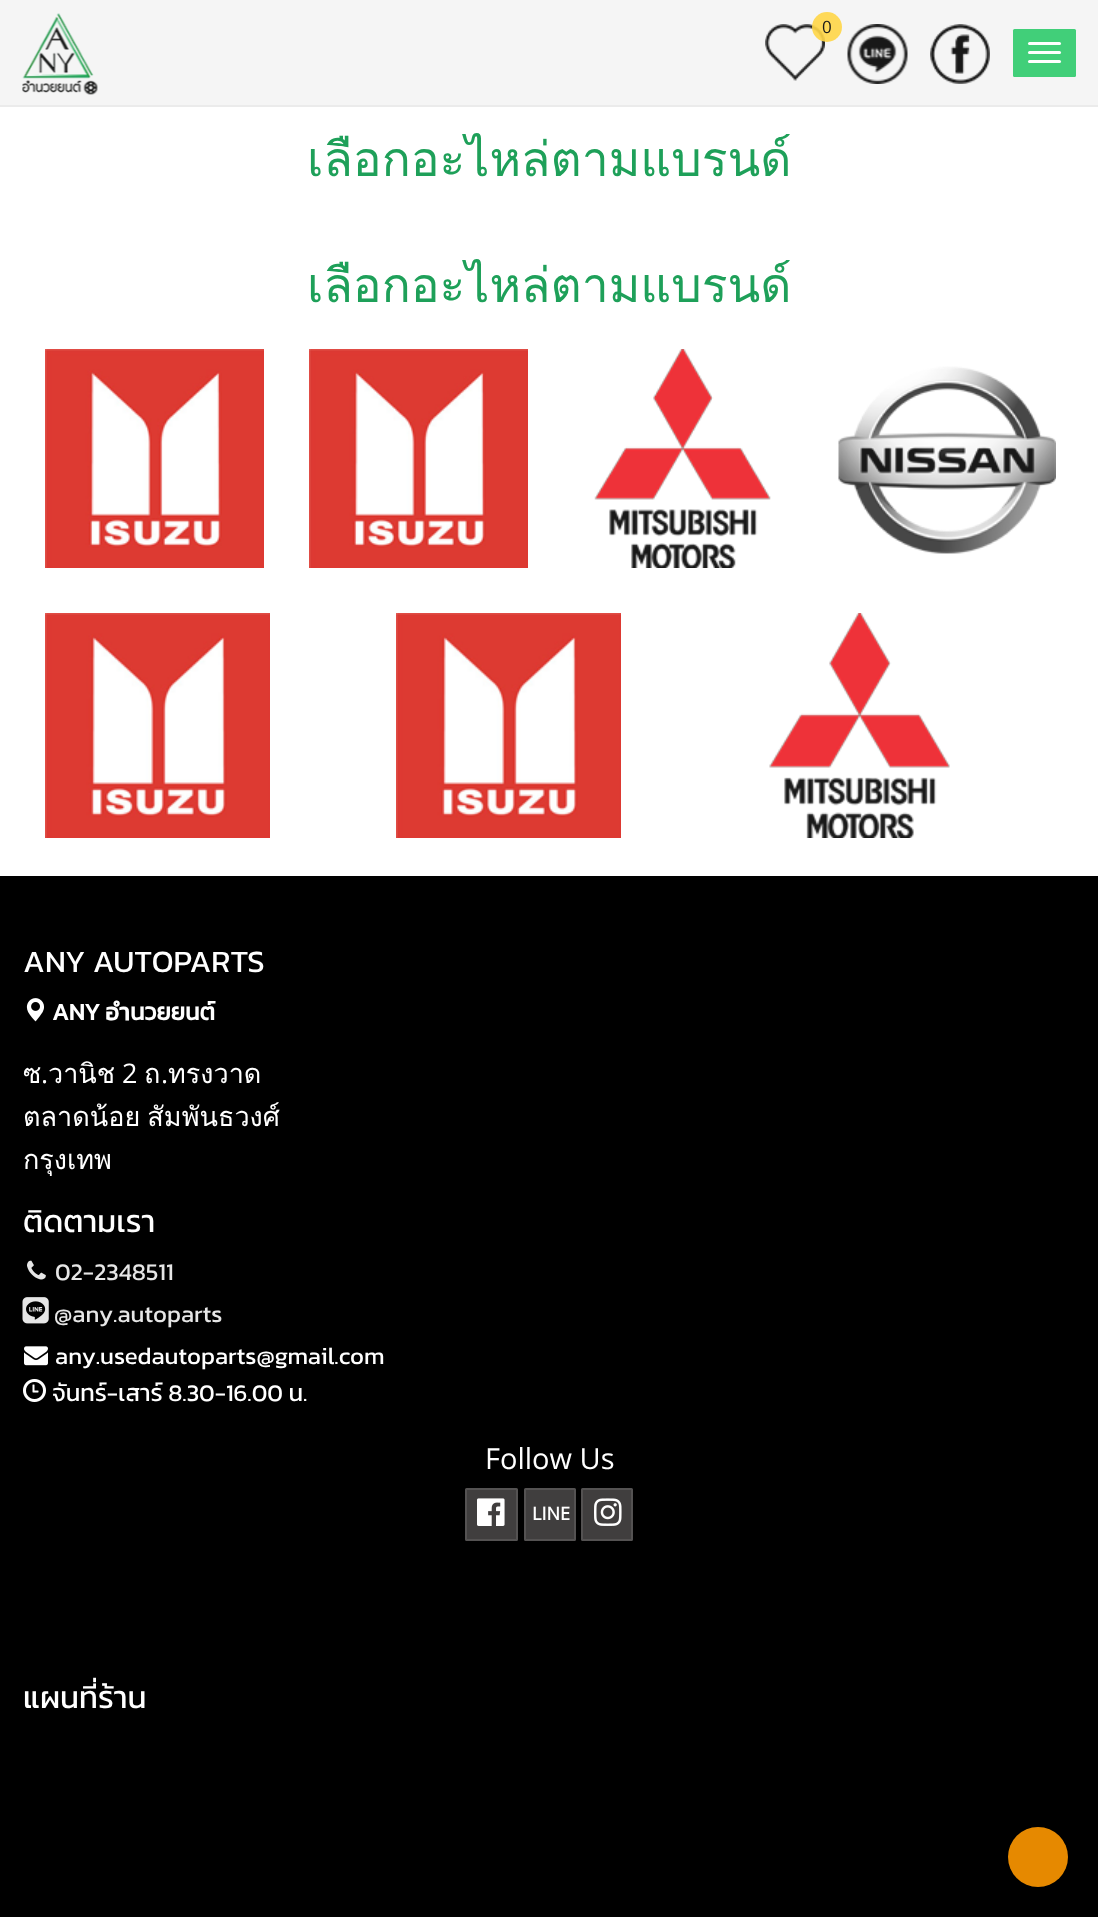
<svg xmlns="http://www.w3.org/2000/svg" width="1098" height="1917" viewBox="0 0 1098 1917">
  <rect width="100%" height="100%" fill="#fff"/>
  <path d="M0 0h1098v105H0z" fill="#f5f5f5"/>
  <path d="M0 105h1098v2H0z" fill="#ebebeb"/>
  <image x="22" y="13" width="76" height="82" href="img/1.png"/>
  <image x="765" y="24" width="60" height="57" href="img/2.png"/>
  <circle cx="827" cy="27" r="15" fill="#ffd647e6"/>
  <image x="847" y="24" width="61" height="60" href="img/3.png"/>
  <image x="930" y="24" width="60" height="60" href="img/4.png"/>
  <rect x="1013" y="29" width="63" height="48" rx="1.5" fill="#41cf79"/>
  <rect x="1028" y="42" width="33" height="3" rx="1.5" fill="#fff"/>
  <rect x="1028" y="51" width="33" height="3" rx="1.5" fill="#fff"/>
  <rect x="1028" y="60" width="33" height="3" rx="1.5" fill="#fff"/>
  <image x="45" y="349" width="219" height="219" href="img/5.png"/>
  <image x="309" y="349" width="219" height="219" href="img/5.png"/>
  <image x="594" y="349" width="177" height="219" href="img/6.png"/>
  <image x="838" y="366" width="218" height="188" href="img/7.png"/>
  <image x="45" y="613" width="225" height="225" href="img/8.png"/>
  <image x="396" y="613" width="225" height="225" href="img/8.png"/>
  <image x="769" y="613" width="181" height="225" href="img/9.png"/>
  <path d="M0 876h1098v1041H0z" fill="#000"/>
  <image x="26" y="998" width="18" height="24" href="img/10.png"/>
  <image x="27" y="1260" width="19" height="20" href="img/11.png"/>
  <image x="22" y="1297" width="27" height="27" href="img/12.png"/>
  <image x="24" y="1346" width="24" height="20" href="img/13.png"/>
  <rect x="466" y="1489" width="51" height="51" rx="0.5" fill="#403e3e" stroke="#545252" stroke-width="2"/>
  <image x="477" y="1498" width="28" height="28" href="img/15.png"/>
  <rect x="525" y="1489" width="50" height="51" rx="0.5" fill="#403e3e" stroke="#545252" stroke-width="2"/>
  <rect x="582" y="1489" width="50" height="51" rx="0.5" fill="#403e3e" stroke="#545252" stroke-width="2"/>
  <image x="594" y="1498" width="28" height="28" href="img/16.png"/>
  <circle cx="1038" cy="1857" r="30" fill="#e68900"/>
  <text x="822" y="33" font-family="Open Sans" font-size="17" fill="#191919">0</text>
  <g font-family="Loma" font-size="48" fill="#1ea059">
    <text x="307" y="176">เลือกอะไหล่ตามแบรนด์</text>
    <text x="307" y="302">เลือกอะไหล่ตามแบรนด์</text>
  </g>
  <text x="23" y="972" font-family="Kanit" font-size="31.25" fill="#fff">ANY AUTOPARTS</text>
  <text x="52" y="1020" font-family="Kanit" font-size="24" font-weight="bold" fill="#fff">ANY อำนวยยนต์</text>
  <text x="23" y="1083" font-family="Loma" font-size="27" fill="#fff">ซ</text>
  <text x="41" y="1083" font-family="Open Sans" font-size="27" fill="#fff">.</text>
  <text x="48" y="1083" font-family="Loma" font-size="27" fill="#fff">วานิช</text>
  <text x="122" y="1083" font-family="Open Sans" font-size="27" fill="#fff">2</text>
  <text x="144" y="1083" font-family="Loma" font-size="27" fill="#fff">ถ</text>
  <text x="161" y="1083" font-family="Open Sans" font-size="27" fill="#fff">.</text>
  <g font-family="Loma" font-size="27" fill="#fff">
    <text x="168" y="1083">ทรงวาด</text>
    <text x="23" y="1126" word-spacing="-2">ตลาดน้อย สัมพันธวงศ์</text>
    <text x="23" y="1169">กรุงเทพ</text>
  </g>
  <text x="23" y="1232" font-family="Kanit" font-size="31.25" fill="#fff">ติดตามเรา</text>
  <g font-family="Kanit" font-size="24" fill="#e6e6e6">
    <text x="55" y="1280">02-2348511</text>
    <text x="54" y="1322">@any.autoparts</text>
  </g>
  <g font-family="Kanit" font-size="24" fill="#fff">
    <text x="55" y="1364">any.usedautoparts@gmail.com</text>
    <text x="52" y="1401">จันทร์-เสาร์ 8.30-16.00 น.</text>
  </g>
  <image x="23" y="1379" width="23" height="23" href="img/14.png"/>
  <text x="485" y="1469" font-family="Open Sans" font-size="29" fill="#fff">Follow Us</text>
  <text x="532" y="1520" font-family="Open Sans" font-size="18" font-weight="bold" fill="#fff">LINE</text>
  <text x="23" y="1708" font-family="Kanit" font-size="31.25" fill="#fff">แผนที่ร้าน</text>
</svg>
